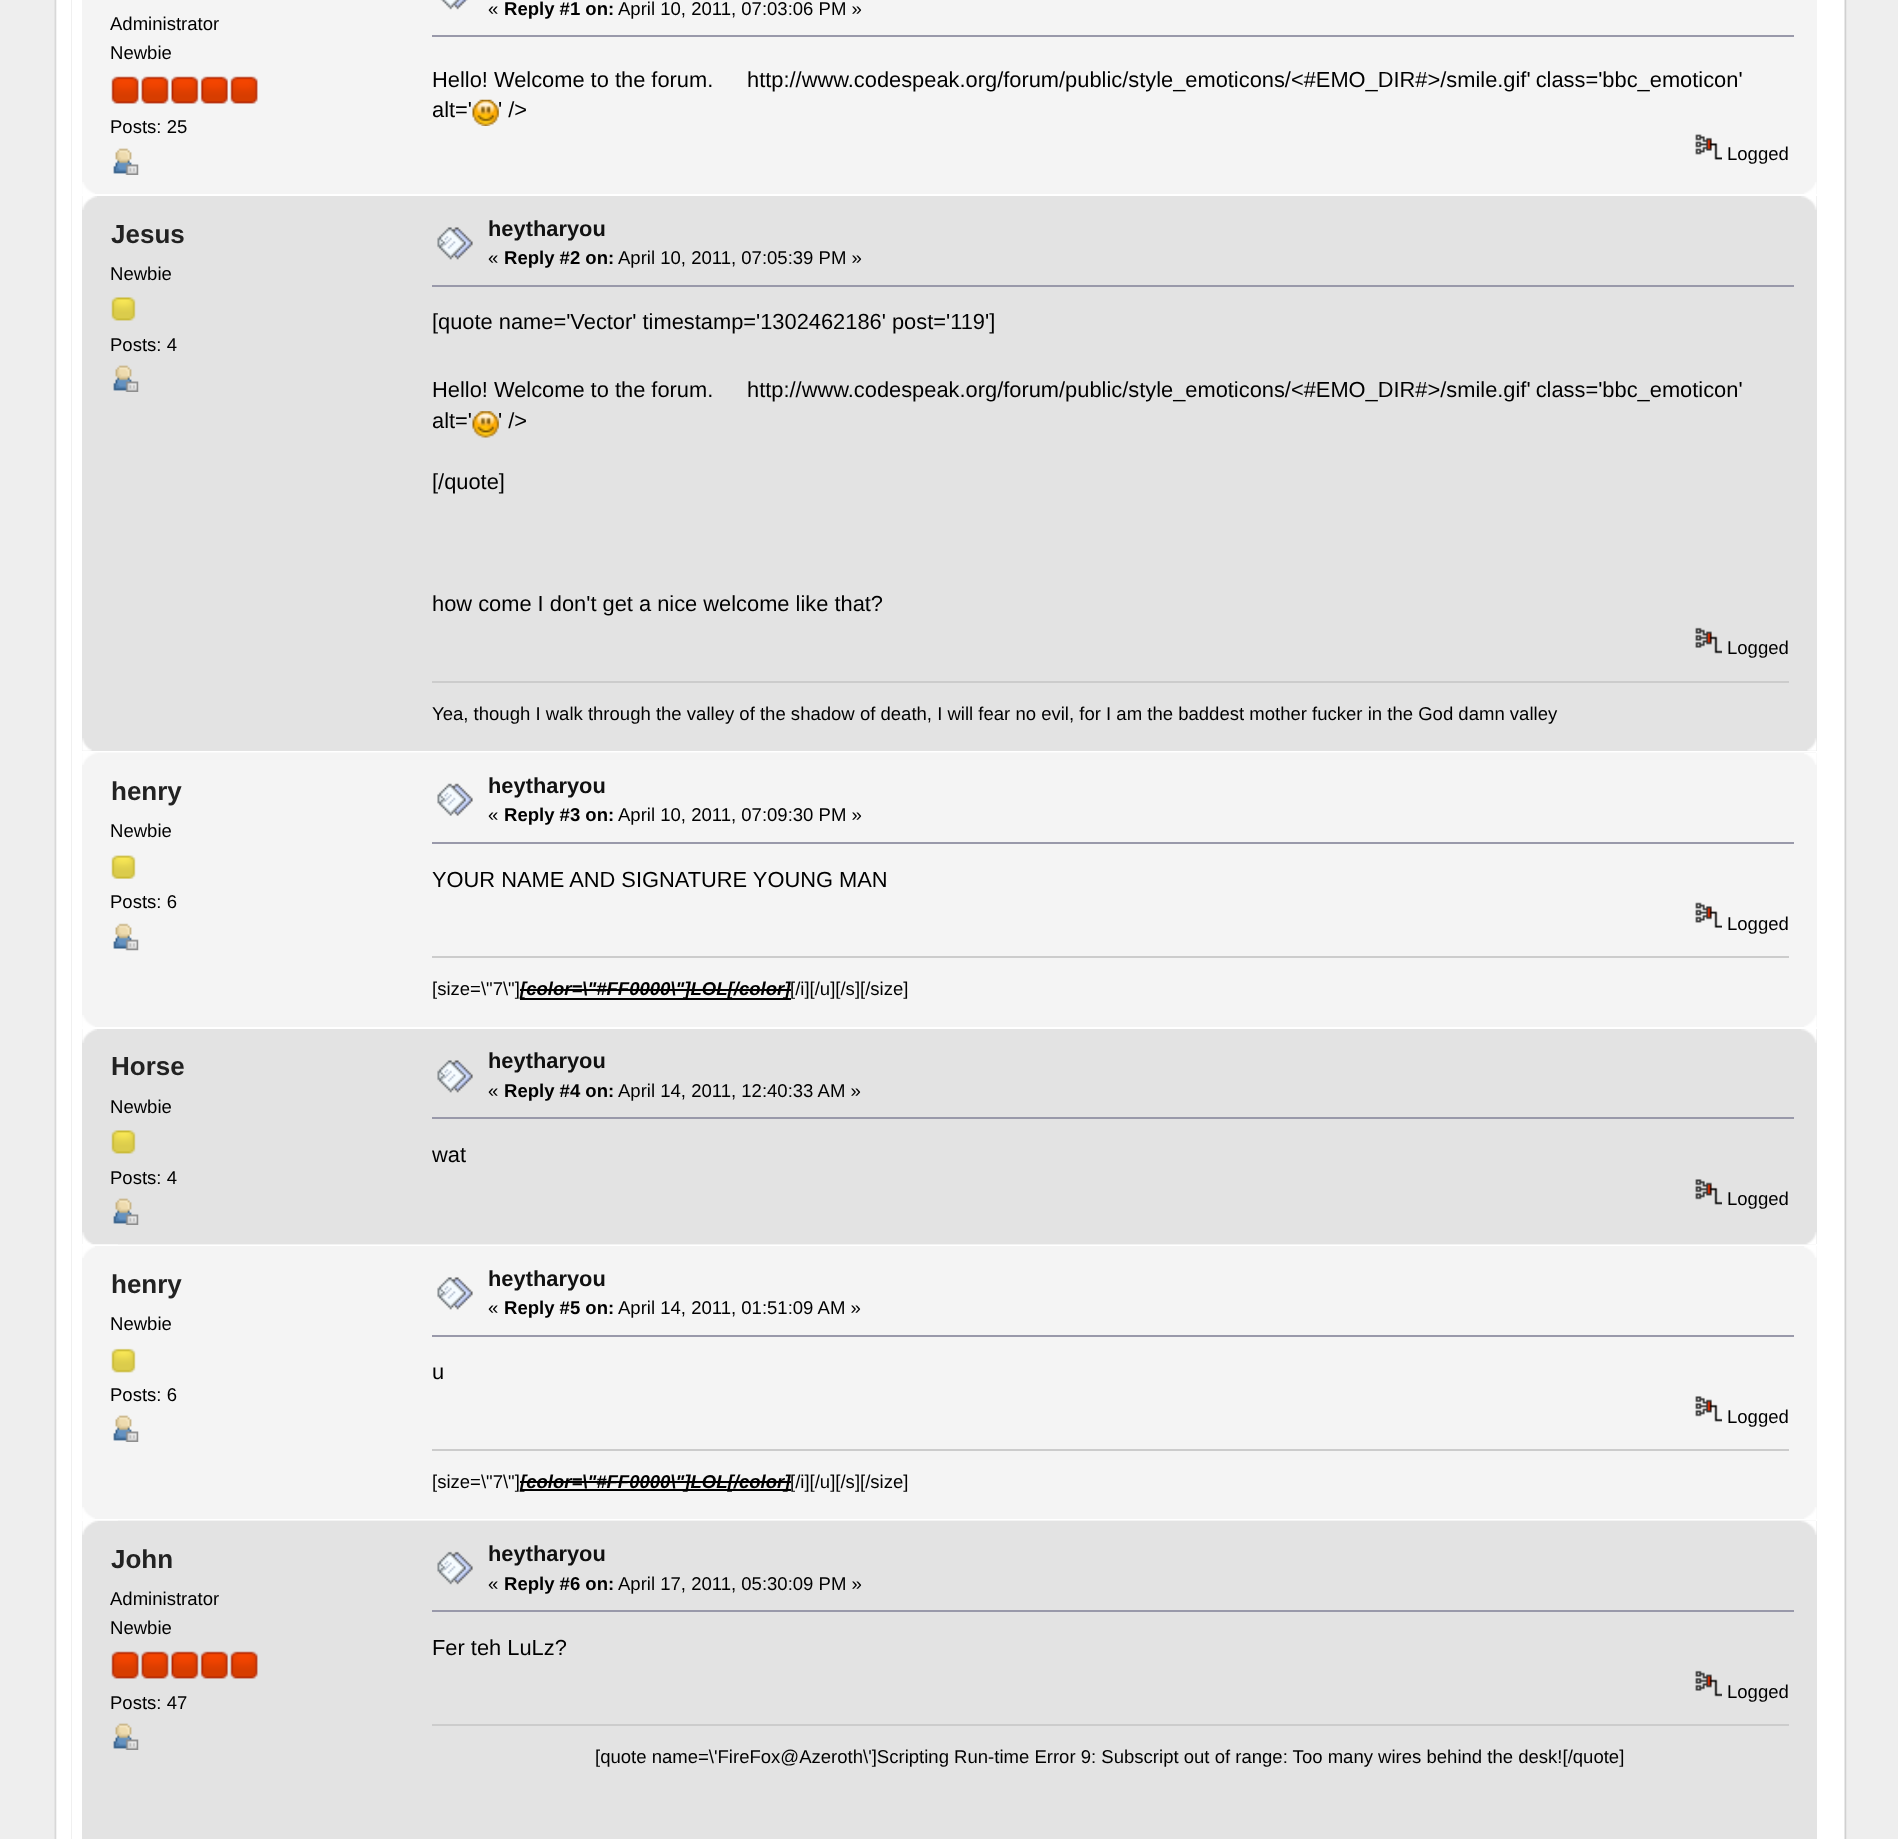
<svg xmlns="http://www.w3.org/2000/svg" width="1898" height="1839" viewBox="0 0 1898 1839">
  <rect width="100%" height="100%" fill="#eee"/>
  <image x="54" y="0" width="18" height="1839" href="img/1.png"/>
  <image x="1829" y="0" width="18" height="1839" href="img/2.png"/>
  <path d="M72 0h1757v1839H72z" fill="#fff"/>
  <path d="M82 0h1735v194H82z" fill="#f4f4f4"/>
  <image x="111" y="76" width="28" height="28" href="img/3.png"/>
  <image x="141" y="76" width="28" height="28" href="img/4.png"/>
  <image x="171" y="76" width="28" height="28" href="img/5.png"/>
  <image x="200" y="76" width="28" height="28" href="img/6.png"/>
  <image x="230" y="76" width="28" height="28" href="img/7.png"/>
  <image x="113" y="148" width="26" height="27" href="img/8.png"/>
  <image x="440" y="0" width="28" height="10" href="img/9.png"/>
  <path d="M432 35h1362v2H432z" fill="#99a"/>
  <image x="472" y="99" width="27" height="27" href="img/10.png"/>
  <image x="1695" y="134" width="27" height="26" href="img/11.png"/>
  <image x="82" y="182" width="13" height="12" href="img/12.png"/>
  <image x="1804" y="182" width="13" height="12" href="img/13.png"/>
  <path d="M82 196h1735v555H82z" fill="#e3e3e3"/>
  <image x="82" y="196" width="15" height="14" href="img/14.png"/>
  <image x="1801" y="196" width="16" height="14" href="img/15.png"/>
  <image x="111" y="297" width="25" height="24" href="img/16.png"/>
  <image x="113" y="365" width="26" height="27" href="img/17.png"/>
  <image x="437" y="227" width="36" height="33" href="img/18.png"/>
  <path d="M432 285h1362v2H432z" fill="#99a"/>
  <image x="472" y="411" width="27" height="27" href="img/19.png"/>
  <image x="1695" y="627" width="27" height="27" href="img/20.png"/>
  <path d="M432 681h1357v2H432z" fill="#ccc"/>
  <image x="82" y="738" width="10" height="13" href="img/21.png"/>
  <image x="1807" y="738" width="10" height="13" href="img/22.png"/>
  <path d="M82 753h1735v274H82z" fill="#f4f4f4"/>
  <image x="82" y="752" width="1734" height="13" href="img/23.png"/>
  <image x="1804" y="753" width="13" height="12" href="img/24.png"/>
  <image x="111" y="855" width="25" height="24" href="img/25.png"/>
  <image x="113" y="923" width="26" height="28" href="img/26.png"/>
  <image x="437" y="783" width="36" height="33" href="img/27.png"/>
  <path d="M432 842h1362v2H432z" fill="#99a"/>
  <image x="1695" y="902" width="27" height="26" href="img/28.png"/>
  <path d="M432 956h1357v2H432z" fill="#ccc"/>
  <path d="M520 998h271v2H520z" fill="#000"/>
  <path d="M520 989h271v2H520z" fill="#000"/>
  <image x="82" y="1015" width="13" height="12" href="img/12.png"/>
  <image x="1804" y="1015" width="13" height="12" href="img/13.png"/>
  <path d="M82 1029h1735v215H82z" fill="#e3e3e3"/>
  <image x="82" y="1029" width="15" height="14" href="img/14.png"/>
  <image x="1801" y="1029" width="16" height="14" href="img/15.png"/>
  <image x="111" y="1130" width="25" height="24" href="img/16.png"/>
  <image x="113" y="1198" width="26" height="27" href="img/17.png"/>
  <image x="437" y="1060" width="36" height="33" href="img/18.png"/>
  <path d="M432 1117h1362v2H432z" fill="#99a"/>
  <image x="1695" y="1179" width="27" height="26" href="img/29.png"/>
  <image x="82" y="1232" width="1734" height="13" href="img/30.png"/>
  <image x="118" y="1232" width="1699" height="13" href="img/31.png"/>
  <path d="M82 1246h1735v273H82z" fill="#f4f4f4"/>
  <image x="82" y="1246" width="13" height="12" href="img/32.png"/>
  <image x="1804" y="1246" width="13" height="12" href="img/33.png"/>
  <image x="111" y="1348" width="25" height="25" href="img/34.png"/>
  <image x="113" y="1415" width="26" height="27" href="img/8.png"/>
  <image x="437" y="1277" width="36" height="33" href="img/35.png"/>
  <path d="M432 1335h1362v2H432z" fill="#99a"/>
  <image x="1695" y="1396" width="27" height="26" href="img/36.png"/>
  <path d="M432 1449h1357v2H432z" fill="#ccc"/>
  <path d="M520 1489h271v2H520z" fill="#000"/>
  <path d="M520 1481h271v2H520z" fill="#000"/>
  <image x="82" y="1507" width="13" height="12" href="img/37.png"/>
  <image x="1804" y="1507" width="13" height="12" href="img/38.png"/>
  <path d="M82 1521h1735v318H82z" fill="#e3e3e3"/>
  <image x="82" y="1520" width="1734" height="15" href="img/39.png"/>
  <image x="118" y="1520" width="1699" height="15" href="img/40.png"/>
  <image x="111" y="1651" width="28" height="28" href="img/41.png"/>
  <image x="141" y="1651" width="28" height="28" href="img/42.png"/>
  <image x="171" y="1651" width="28" height="28" href="img/43.png"/>
  <image x="200" y="1651" width="28" height="28" href="img/44.png"/>
  <image x="230" y="1651" width="28" height="28" href="img/45.png"/>
  <image x="113" y="1723" width="26" height="27" href="img/17.png"/>
  <image x="437" y="1551" width="36" height="34" href="img/46.png"/>
  <path d="M432 1610h1362v2H432z" fill="#99a"/>
  <image x="1695" y="1670" width="27" height="27" href="img/20.png"/>
  <path d="M432 1724h1357v2H432z" fill="#ccc"/>
  <g font-family="Liberation Sans" font-size="18.55" fill="#000">
    <text x="110" y="30">Administrator</text>
    <text x="110" y="59">Newbie</text>
    <text x="110" y="133">Posts: 25</text>
    <text x="488" y="15">«</text>
  </g>
  <text x="504" y="15" font-family="Liberation Sans" font-size="18.55" font-weight="bold" fill="#000">Reply #1 on:</text>
  <text x="618" y="15" font-family="Liberation Sans" font-size="18.55" fill="#000">April 10, 2011, 07:03:06 PM »</text>
  <g font-family="Liberation Sans" font-size="21.85" fill="#000">
    <text x="432" y="87">Hello! Welcome to the forum.</text>
    <text x="747" y="87" word-spacing="-1">http://www.codespeak.org/forum/public/style_emoticons/&lt;#EMO_DIR#&gt;/smile.gif' class='bbc_emoticon'</text>
    <text x="432" y="117">alt='</text>
    <text x="498" y="117">' /&gt;</text>
  </g>
  <text x="1727" y="160" font-family="Liberation Sans" font-size="18.55" fill="#000">Logged</text>
  <text x="111" y="243" font-family="Liberation Sans" font-size="26" font-weight="bold" fill="#222">Jesus</text>
  <g font-family="Liberation Sans" font-size="18.55" fill="#000">
    <text x="110" y="280">Newbie</text>
    <text x="110" y="351">Posts: 4</text>
  </g>
  <text x="488" y="236" font-family="Liberation Sans" font-size="21.85" font-weight="bold" fill="#111">heytharyou</text>
  <text x="488" y="264" font-family="Liberation Sans" font-size="18.55" fill="#000">«</text>
  <text x="504" y="264" font-family="Liberation Sans" font-size="18.55" font-weight="bold" fill="#000">Reply #2 on:</text>
  <text x="618" y="264" font-family="Liberation Sans" font-size="18.55" fill="#000">April 10, 2011, 07:05:39 PM »</text>
  <g font-family="Liberation Sans" font-size="21.85" fill="#000">
    <text x="432" y="329">[quote name='Vector' timestamp='1302462186' post='119']</text>
    <text x="432" y="397">Hello! Welcome to the forum.</text>
    <text x="747" y="397" word-spacing="-1">http://www.codespeak.org/forum/public/style_emoticons/&lt;#EMO_DIR#&gt;/smile.gif' class='bbc_emoticon'</text>
    <text x="432" y="428">alt='</text>
    <text x="498" y="428">' /&gt;</text>
    <text x="432" y="489">[/quote]</text>
    <text x="432" y="611">how come I don't get a nice welcome like that?</text>
  </g>
  <g font-family="Liberation Sans" font-size="18.55" fill="#000">
    <text x="1727" y="654">Logged</text>
    <text x="432" y="720">Yea, though I walk through the valley of the shadow of death, I will fear no evil, for I am the baddest mother fucker in the God damn valley</text>
  </g>
  <text x="111" y="800" font-family="Liberation Sans" font-size="26" font-weight="bold" fill="#222">henry</text>
  <g font-family="Liberation Sans" font-size="18.55" fill="#000">
    <text x="110" y="837">Newbie</text>
    <text x="110" y="908">Posts: 6</text>
  </g>
  <text x="488" y="793" font-family="Liberation Sans" font-size="21.85" font-weight="bold" fill="#111">heytharyou</text>
  <text x="488" y="821" font-family="Liberation Sans" font-size="18.55" fill="#000">«</text>
  <text x="504" y="821" font-family="Liberation Sans" font-size="18.55" font-weight="bold" fill="#000">Reply #3 on:</text>
  <text x="618" y="821" font-family="Liberation Sans" font-size="18.55" fill="#000">April 10, 2011, 07:09:30 PM »</text>
  <text x="432" y="887" font-family="Liberation Sans" font-size="21.85" fill="#000">YOUR NAME AND SIGNATURE YOUNG MAN</text>
  <g font-family="Liberation Sans" font-size="18.55" fill="#000">
    <text x="1727" y="930">Logged</text>
    <text x="432" y="995">[size=\"7\"]</text>
  </g>
  <text x="520" y="995" font-family="Liberation Sans" font-size="18.55" font-weight="bold" font-style="italic" fill="#000">[color=\"#FF0000\"]LOL[/color]</text>
  <text x="790" y="995" font-family="Liberation Sans" font-size="18.55" fill="#000">[/i][/u][/s][/size]</text>
  <text x="111" y="1075" font-family="Liberation Sans" font-size="26" font-weight="bold" fill="#222">Horse</text>
  <g font-family="Liberation Sans" font-size="18.55" fill="#000">
    <text x="110" y="1113">Newbie</text>
    <text x="110" y="1184">Posts: 4</text>
  </g>
  <text x="488" y="1068" font-family="Liberation Sans" font-size="21.85" font-weight="bold" fill="#111">heytharyou</text>
  <text x="488" y="1097" font-family="Liberation Sans" font-size="18.55" fill="#000">«</text>
  <text x="504" y="1097" font-family="Liberation Sans" font-size="18.55" font-weight="bold" fill="#000">Reply #4 on:</text>
  <text x="618" y="1097" font-family="Liberation Sans" font-size="18.55" fill="#000">April 14, 2011, 12:40:33 AM »</text>
  <text x="432" y="1162" font-family="Liberation Sans" font-size="21.85" fill="#000">wat</text>
  <text x="1727" y="1205" font-family="Liberation Sans" font-size="18.55" fill="#000">Logged</text>
  <text x="111" y="1293" font-family="Liberation Sans" font-size="26" font-weight="bold" fill="#222">henry</text>
  <g font-family="Liberation Sans" font-size="18.55" fill="#000">
    <text x="110" y="1330">Newbie</text>
    <text x="110" y="1401">Posts: 6</text>
  </g>
  <text x="488" y="1286" font-family="Liberation Sans" font-size="21.85" font-weight="bold" fill="#111">heytharyou</text>
  <text x="488" y="1314" font-family="Liberation Sans" font-size="18.55" fill="#000">«</text>
  <text x="504" y="1314" font-family="Liberation Sans" font-size="18.55" font-weight="bold" fill="#000">Reply #5 on:</text>
  <text x="618" y="1314" font-family="Liberation Sans" font-size="18.55" fill="#000">April 14, 2011, 01:51:09 AM »</text>
  <text x="432" y="1379" font-family="Liberation Sans" font-size="21.85" fill="#000">u</text>
  <g font-family="Liberation Sans" font-size="18.55" fill="#000">
    <text x="1727" y="1423">Logged</text>
    <text x="432" y="1488">[size=\"7\"]</text>
  </g>
  <text x="520" y="1488" font-family="Liberation Sans" font-size="18.55" font-weight="bold" font-style="italic" fill="#000">[color=\"#FF0000\"]LOL[/color]</text>
  <text x="790" y="1488" font-family="Liberation Sans" font-size="18.55" fill="#000">[/i][/u][/s][/size]</text>
  <text x="111" y="1568" font-family="Liberation Sans" font-size="26" font-weight="bold" fill="#222">John</text>
  <g font-family="Liberation Sans" font-size="18.55" fill="#000">
    <text x="110" y="1605">Administrator</text>
    <text x="110" y="1634">Newbie</text>
    <text x="110" y="1709">Posts: 47</text>
  </g>
  <text x="488" y="1561" font-family="Liberation Sans" font-size="21.85" font-weight="bold" fill="#111">heytharyou</text>
  <text x="488" y="1590" font-family="Liberation Sans" font-size="18.55" fill="#000">«</text>
  <text x="504" y="1590" font-family="Liberation Sans" font-size="18.55" font-weight="bold" fill="#000">Reply #6 on:</text>
  <text x="618" y="1590" font-family="Liberation Sans" font-size="18.55" fill="#000">April 17, 2011, 05:30:09 PM »</text>
  <text x="432" y="1655" font-family="Liberation Sans" font-size="21.85" fill="#000">Fer teh LuLz?</text>
  <g font-family="Liberation Sans" font-size="18.55" fill="#000">
    <text x="1727" y="1698">Logged</text>
    <text x="595" y="1763">[quote name=\'FireFox@Azeroth\']Scripting Run-time Error 9: Subscript out of range: Too many wires behind the desk![/quote]</text>
  </g>
</svg>
